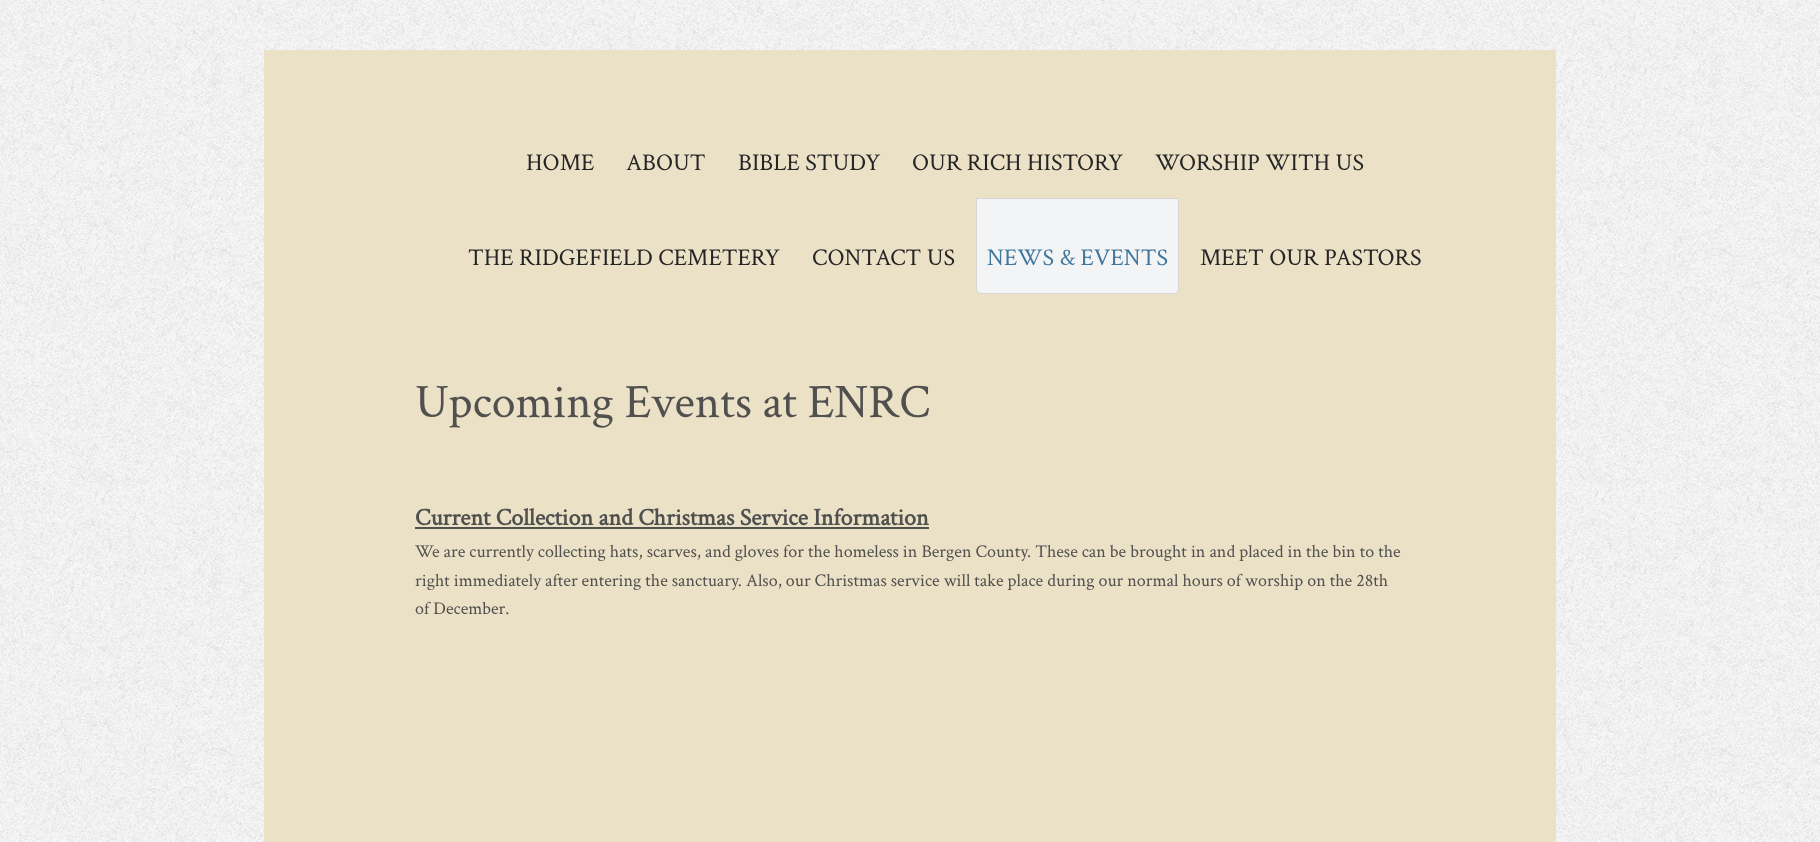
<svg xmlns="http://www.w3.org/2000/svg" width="1820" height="842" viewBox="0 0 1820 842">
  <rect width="100%" height="100%" fill="#fff"/>
  <image x="0" y="0" width="1820" height="842" href="img/1.png"/>
  <path d="M264 50h1292v792H264z" fill="#ebe1c7"/>
  <path d="M976.5 198.5H1178.5V289C1178.5 291.5 1176.5 293.5 1174 293.5H981C978.5 293.5 976.5 291.5 976.5 289Z" fill="#f2f4f5" stroke="#d7d6d4"/>
  <path d="M415 527h514v2H415z" fill="#50504e"/>
  <g font-family="Crimson Text" font-size="24" fill="#252525">
    <text x="526" y="170">HOME</text>
    <text x="626" y="170">ABOUT</text>
    <text x="738" y="170">BIBLE STUDY</text>
    <text x="912" y="170">OUR RICH HISTORY</text>
    <text x="1155" y="170">WORSHIP WITH US</text>
    <text x="468" y="265">THE RIDGEFIELD CEMETERY</text>
    <text x="812" y="265">CONTACT US</text>
  </g>
  <text x="987" y="265" font-family="Crimson Text" font-size="24" fill="#41779d">NEWS &amp; EVENTS</text>
  <text x="1200" y="265" font-family="Crimson Text" font-size="24" fill="#252525">MEET OUR PASTORS</text>
  <text x="415" y="417" font-family="Crimson Text" font-size="48" fill="#50504e">Upcoming Events at ENRC</text>
  <text x="415" y="525" font-family="Crimson Text" font-size="24" font-weight="bold" fill="#50504e">Current Collection and Christmas Service Information</text>
  <g font-family="Crimson Text" font-size="18" fill="#50504e">
    <text x="415" y="557">We are currently collecting hats, scarves, and gloves for the homeless in Bergen County. These can be brought in and placed in the bin to the</text>
    <text x="415" y="586">right immediately after entering the sanctuary. Also, our Christmas service will take place during our normal hours of worship on the 28th</text>
    <text x="415" y="614">of December.</text>
  </g>
</svg>
